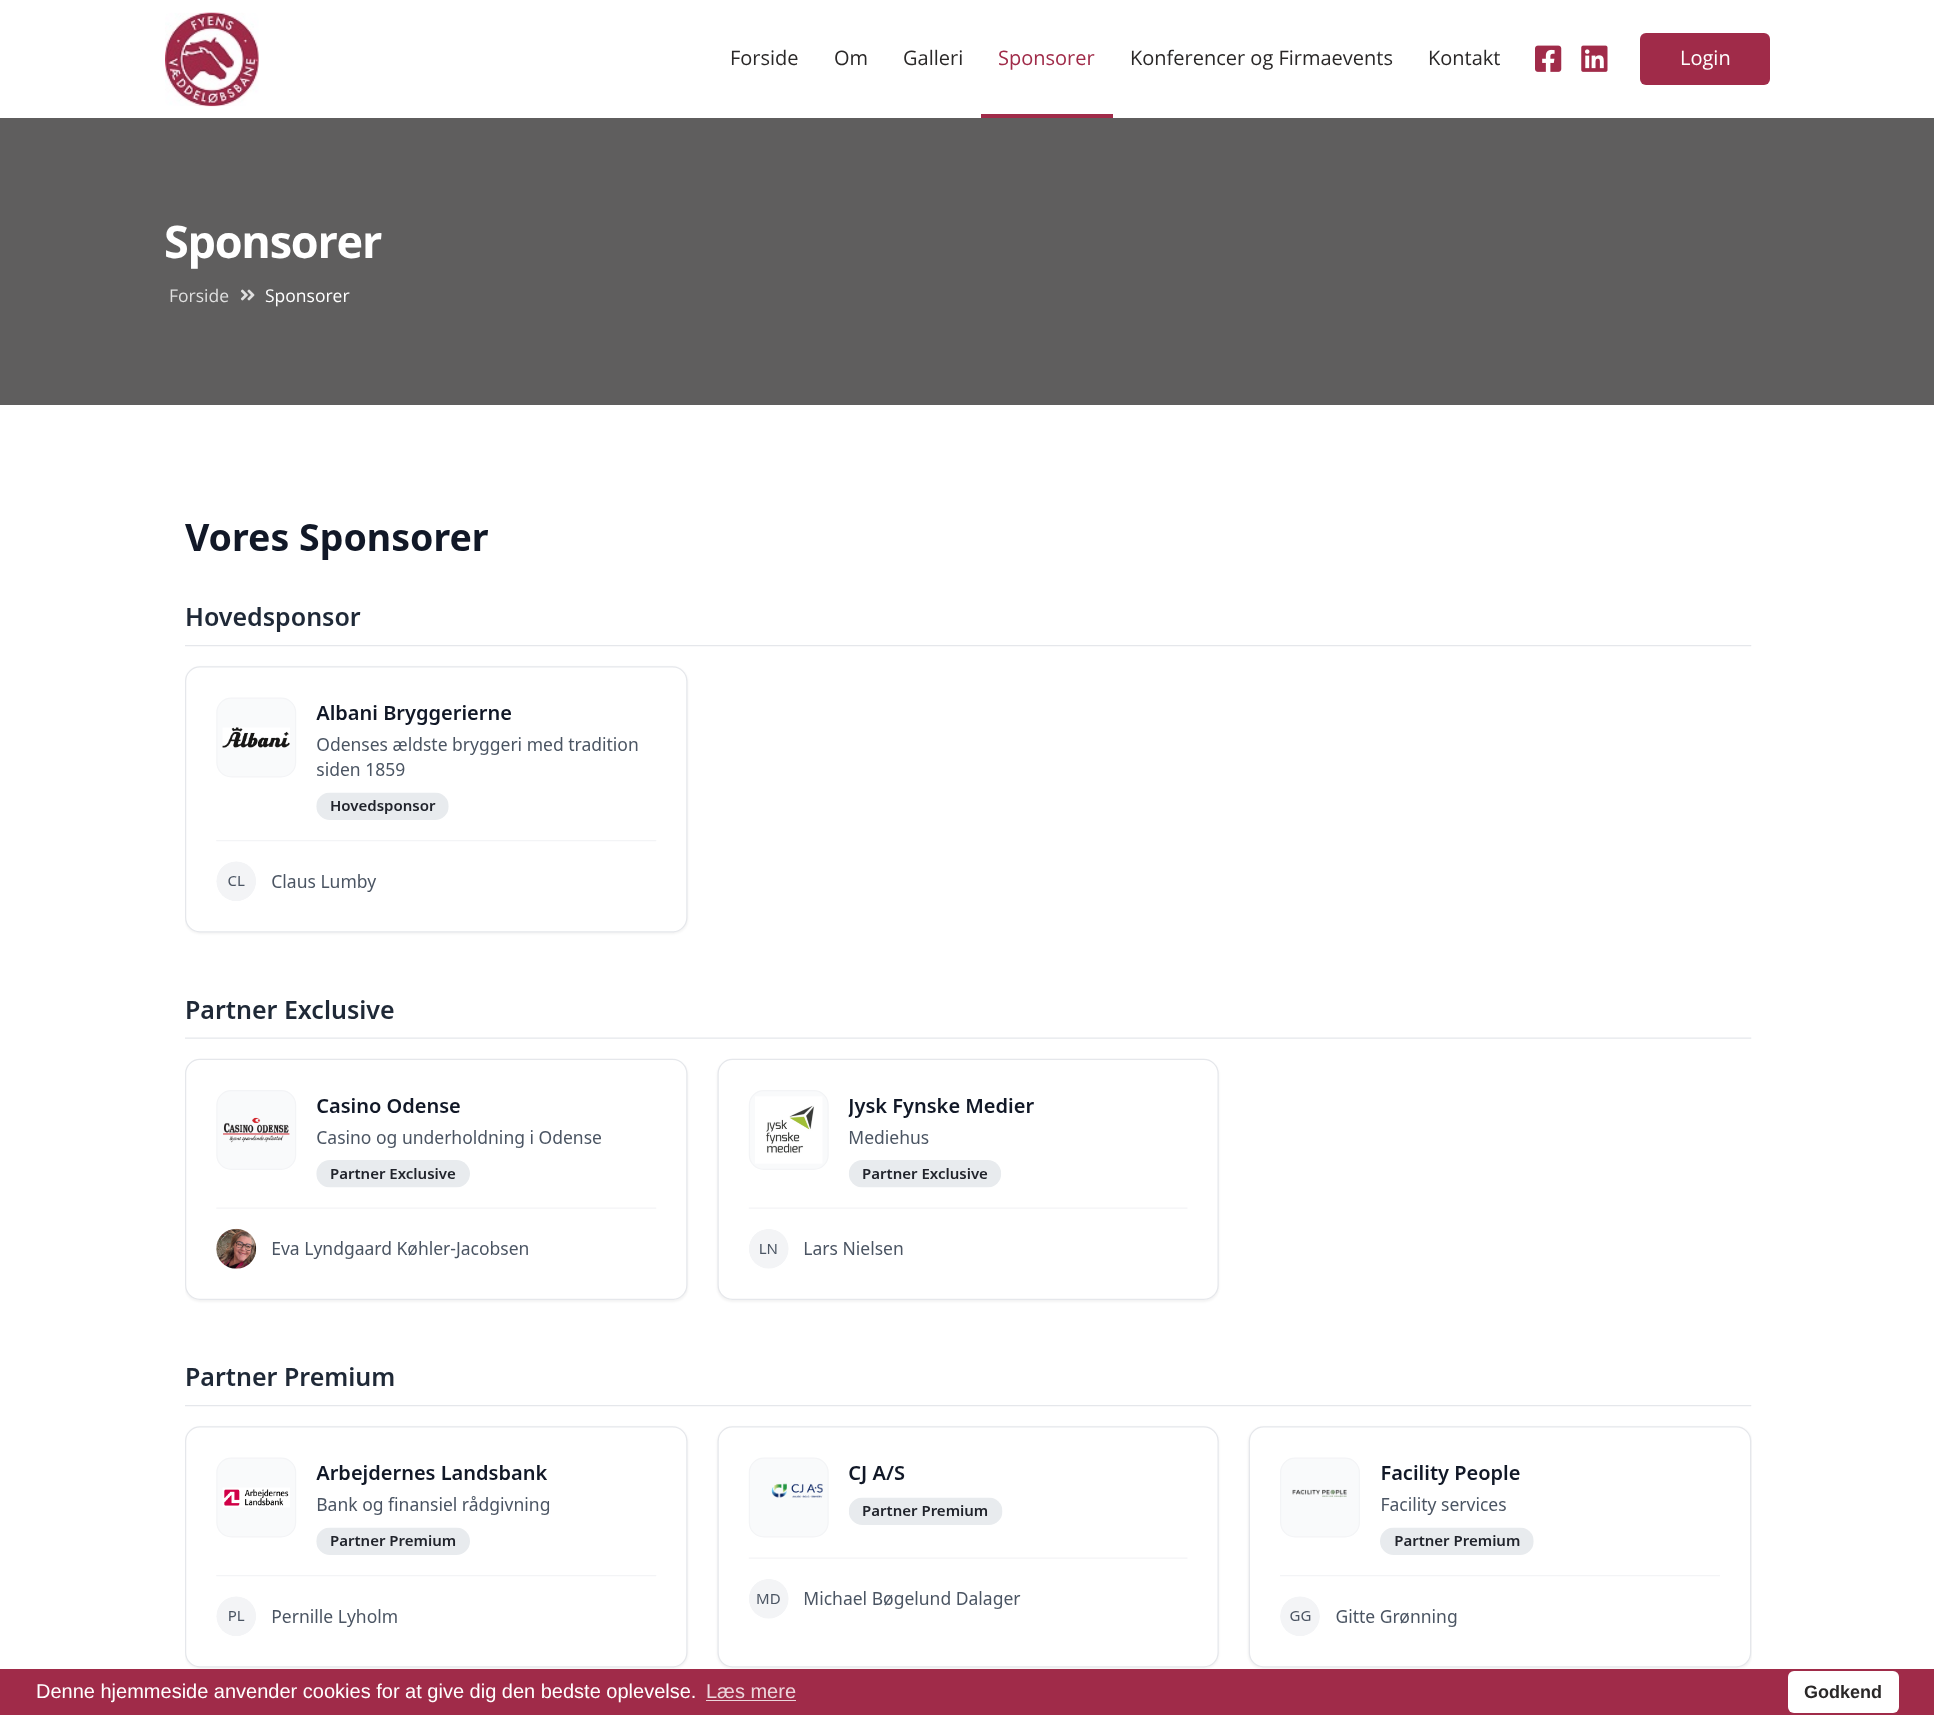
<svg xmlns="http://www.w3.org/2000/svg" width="1934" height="1715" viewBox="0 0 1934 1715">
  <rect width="100%" height="100%" fill="#fff"/>
  <image x="165" y="12" width="94" height="95" href="img/1.png"/>
  <path d="M981 114h132v4H981z" fill="#a02b49"/>
  <image x="1535" y="45" width="27" height="27" href="img/2.png"/>
  <image x="1581" y="45" width="27" height="27" href="img/3.png"/>
  <rect x="1640" y="33" width="130" height="52" rx="6" fill="#a02b49"/>
  <path d="M0 118h1934v287H0z" fill="#5f5e5e"/>
  <image x="240" y="289" width="15" height="12" href="img/4.png"/>
  <image x="185" y="524" width="1567" height="1145" href="img/5.png"/>
  <path d="M0 1669h1934v46H0z" fill="#a02b49"/>
  <path d="M706 1700h90v1H706z" fill="#ecd5db"/>
  <rect x="1788" y="1671" width="111" height="42" rx="6" fill="#fff"/>
  <g font-family="Open Sans" font-size="20" fill="#2a2828">
    <text x="730" y="65">Forside</text>
    <text x="834" y="65">Om</text>
    <text x="903" y="65">Galleri</text>
  </g>
  <text x="998" y="65" font-family="Open Sans" font-size="20" fill="#a02b49">Sponsorer</text>
  <g font-family="Open Sans" font-size="20" fill="#2a2828">
    <text x="1130" y="65">Konferencer og Firmaevents</text>
    <text x="1428" y="65">Kontakt</text>
  </g>
  <text x="1680" y="65" font-family="Open Sans" font-size="20" fill="#fff">Login</text>
  <text x="164" y="258" font-family="Open Sans" font-size="45" font-weight="bold" letter-spacing="-1.25" fill="#fff">Sponsorer</text>
  <text x="169" y="302" font-family="Open Sans" font-size="17.5" fill="#dfdfdf">Forside</text>
  <text x="265" y="302" font-family="Open Sans" font-size="17.5" fill="#fff">Sponsorer</text>
  <text x="36" y="1698" font-family="Liberation Sans" font-size="20" fill="#fff">Denne hjemmeside anvender cookies for at give dig den bedste oplevelse.</text>
  <text x="706" y="1698" font-family="Liberation Sans" font-size="20" fill="#ecd5db">Læs mere</text>
  <text x="1804" y="1698" font-family="Liberation Sans" font-size="18" font-weight="bold" fill="#2a2828">Godkend</text>
</svg>
